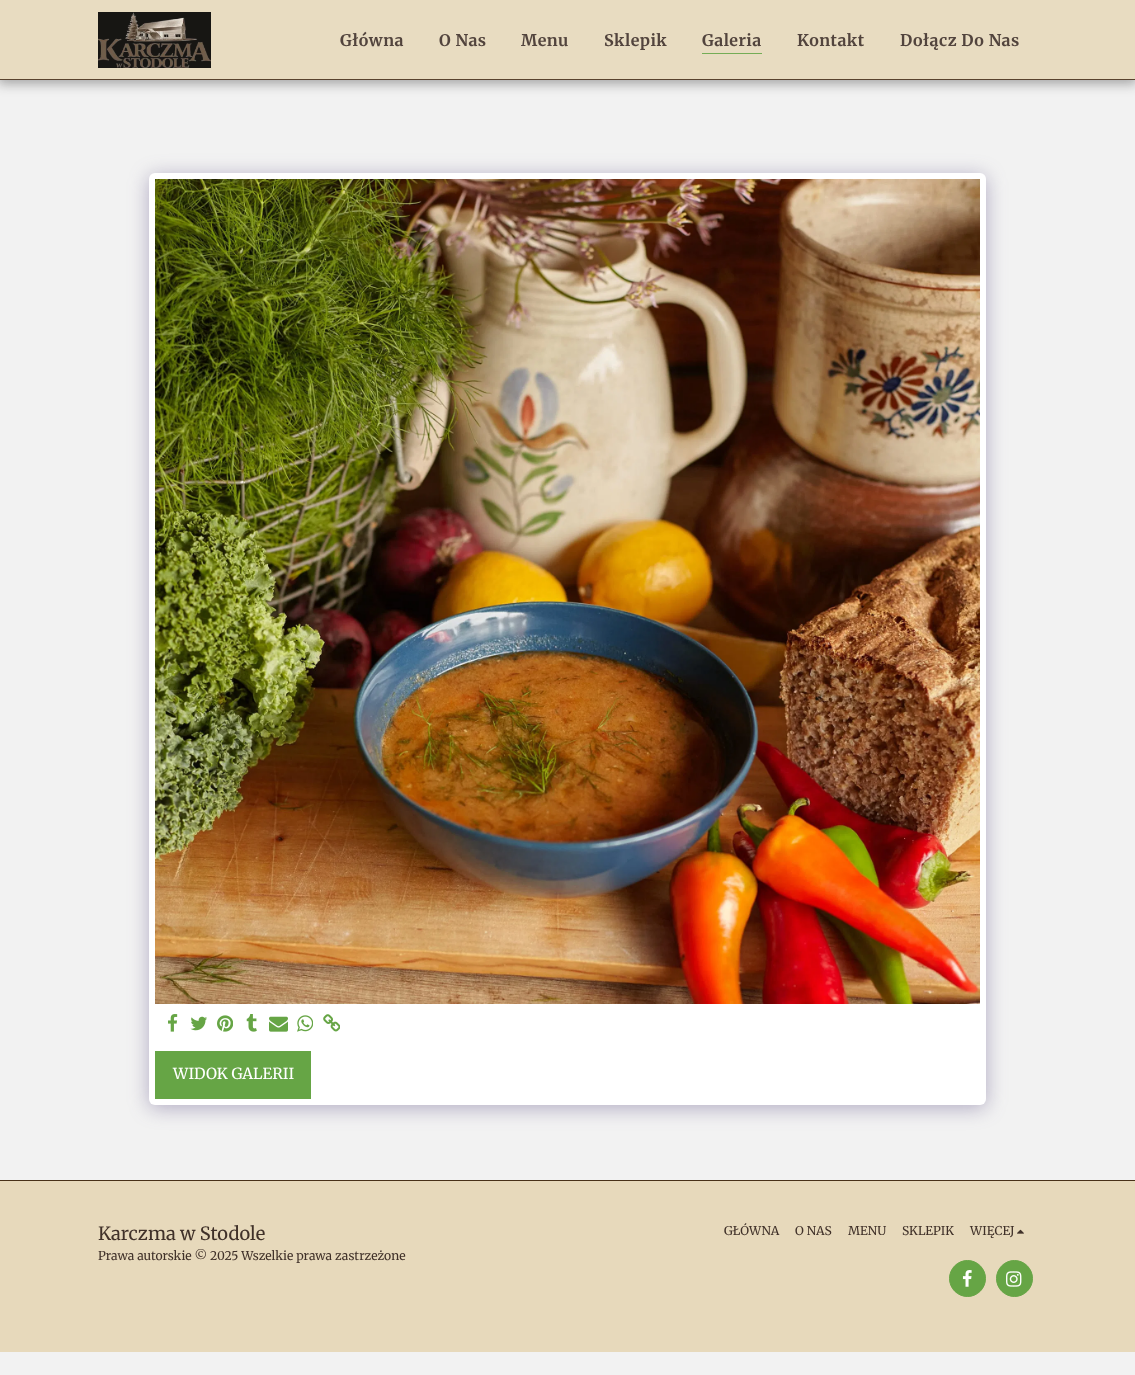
<svg xmlns="http://www.w3.org/2000/svg" width="1135" height="1375" viewBox="0 0 1135 1375">
  <rect width="100%" height="100%" fill="#f2f2f2"/>
  <path d="M-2 0h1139v84H-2z" fill="#18181859" filter="blur(6px)"/>
  <path d="M0 0h1135v79H0z" fill="#e8dcc1"/>
  <path d="M0 79h1135v1H0z" fill="#59432e"/>
  <image x="98" y="12" width="113" height="56" href="img/1.png"/>
  <path d="M702 53h60v1H702z" fill="#74ad56"/>
  <rect x="149" y="176" width="837" height="932" rx="6" fill="#4d3f7a66" filter="blur(10px)"/>
  <rect x="149" y="173" width="837" height="932" rx="6" fill="#fff"/>
  <image x="155" y="179" width="825" height="825" href="img/2.png"/>
  <image x="168" y="1014" width="10" height="18" href="img/3.png"/>
  <image x="190" y="1016" width="17" height="15" href="img/4.png"/>
  <image x="217" y="1015" width="16" height="17" href="img/5.png"/>
  <image x="246" y="1014" width="11" height="18" href="img/6.png"/>
  <image x="269" y="1016" width="19" height="16" href="img/7.png"/>
  <image x="297" y="1015" width="16" height="17" href="img/8.png"/>
  <image x="323" y="1014" width="17" height="18" href="img/9.png"/>
  <path d="M155 1051h156v48H155z" fill="#66a545"/>
  <path d="M0 1181h1135v171H0z" fill="#e7d9bb"/>
  <path d="M0 1180h1135v1H0z" fill="#483018"/>
  <image x="1017" y="1229" width="7" height="5" href="img/10.png"/>
  <circle cx="967.5" cy="1278.5" r="18" fill="#66a545" stroke="#66a545"/>
  <image x="962" y="1270" width="10" height="17" href="img/11.png"/>
  <circle cx="1014.5" cy="1278.5" r="18" fill="#66a545" stroke="#66a545"/>
  <image x="1006" y="1271" width="16" height="16" href="img/12.png"/>
  <g font-family="Merriweather" font-size="16" font-weight="bold" letter-spacing="0.5" fill="#52443d">
    <text x="340" y="46">Główna</text>
    <text x="439" y="46">O Nas</text>
    <text x="521" y="46">Menu</text>
    <text x="604" y="46">Sklepik</text>
    <text x="702" y="46">Galeria</text>
    <text x="797" y="46">Kontakt</text>
    <text x="900" y="46">Dołącz Do Nas</text>
  </g>
  <text x="173" y="1079" font-family="Merriweather" font-size="15.25" fill="#fff">WIDOK GALERII</text>
  <text x="98" y="1240" font-family="Merriweather" font-size="18.25" fill="#403129">Karczma w Stodole</text>
  <g font-family="Merriweather" font-size="12.15" fill="#403129">
    <text x="98" y="1260">Prawa autorskie © 2025 Wszelkie prawa zastrzeżone</text>
    <text x="724" y="1235">GŁÓWNA</text>
    <text x="795" y="1235">O NAS</text>
    <text x="848" y="1235">MENU</text>
    <text x="902" y="1235">SKLEPIK</text>
    <text x="970" y="1235">WIĘCEJ</text>
  </g>
</svg>
